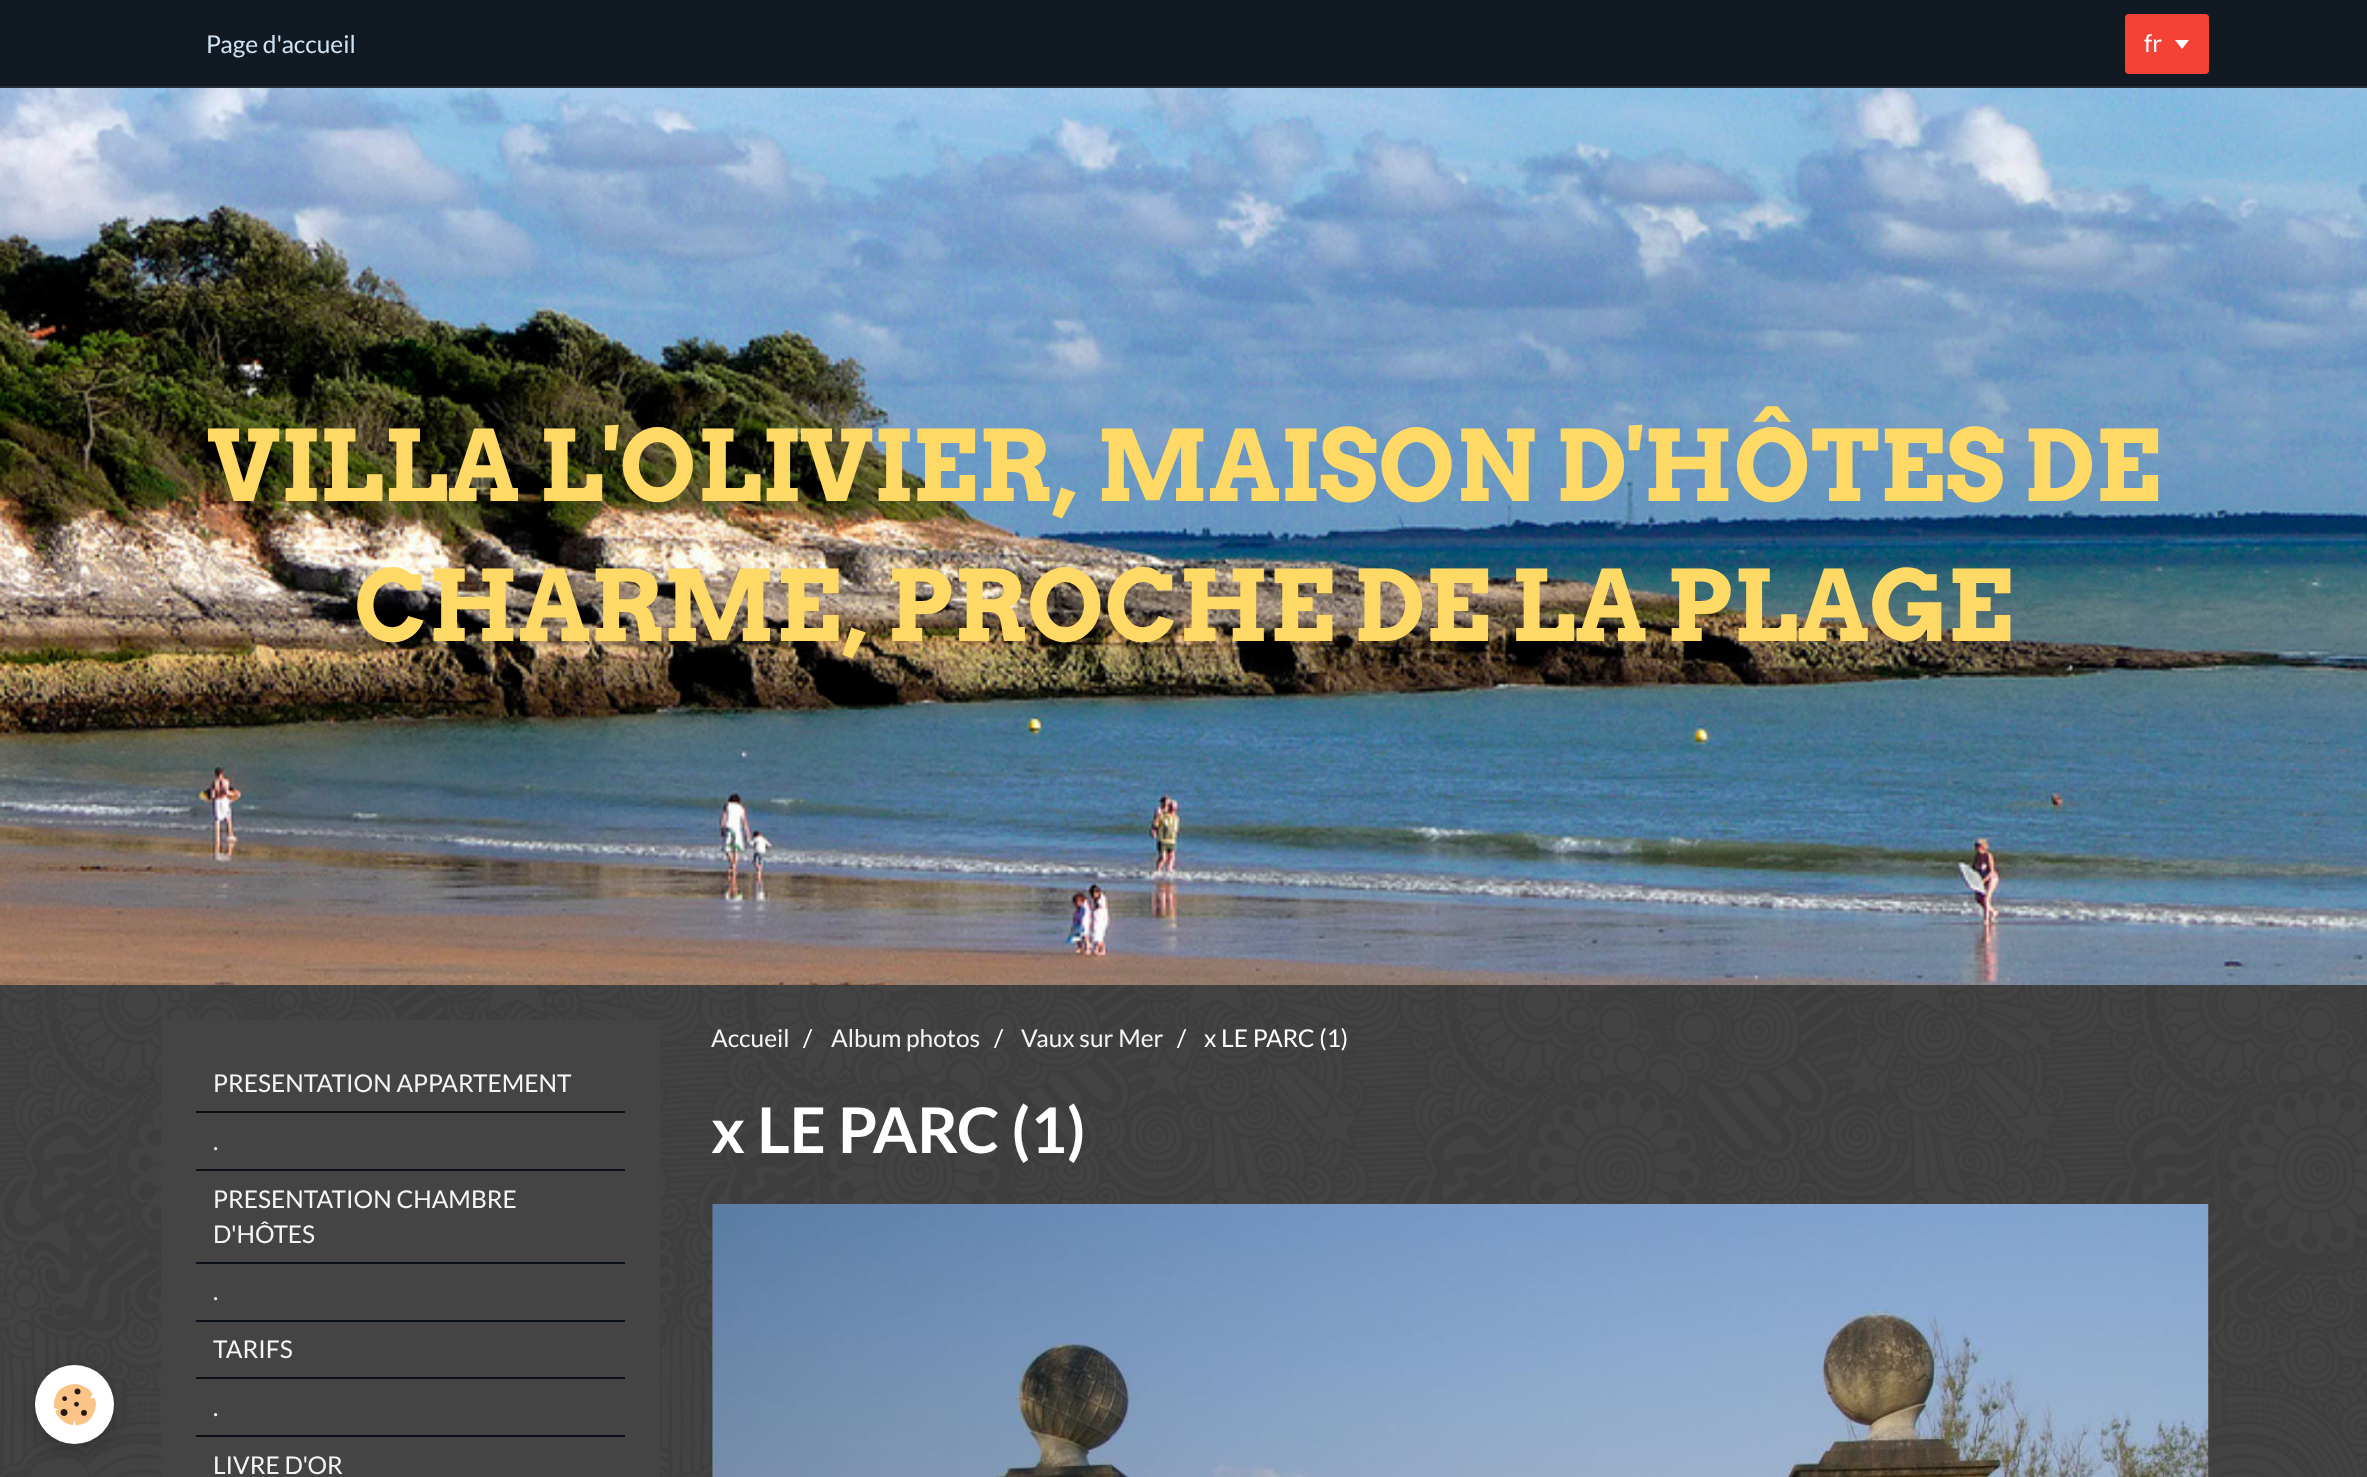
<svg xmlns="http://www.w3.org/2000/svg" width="2367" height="1477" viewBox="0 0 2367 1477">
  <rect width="100%" height="100%" fill="#444"/>
  <image x="0" y="985" width="2367" height="492" href="img/1.png"/>
  <path d="M0 0h2367v86H0z" fill="#111922"/>
  <path d="M0 86h2367v2H0z" fill="#282e33"/>
  <rect x="2125" y="14" width="84" height="60" rx="4" fill="#f44336"/>
  <path d="M2175 40H2189L2182 49Z" fill="#fff"/>
  <image x="0" y="88" width="2367" height="897" href="img/2.png"/>
  <rect x="35" y="1370" width="79" height="79" rx="39.5" fill="#0000003d" filter="blur(9px)"/>
  <circle cx="74.5" cy="1404.5" r="39.5" fill="#fff"/>
  <image x="53" y="1384" width="43" height="42" href="img/3.png"/>
  <path d="M161 1020h499v457H161z" fill="#444"/>
  <path d="M196 1111h429v2H196z" fill="#0b1016"/>
  <path d="M196 1169h429v2H196z" fill="#0b1016"/>
  <path d="M196 1262h429v2H196z" fill="#0b1016"/>
  <path d="M196 1320h429v2H196z" fill="#0b1016"/>
  <path d="M196 1377h429v2H196z" fill="#0b1016"/>
  <path d="M196 1435h429v2H196z" fill="#0b1016"/>
  <image x="712" y="1204" width="1497" height="273" href="img/4.png"/>
  <text x="206" y="53" font-family="Lato" font-size="24.5" fill="#cfe2f3">Page d'accueil</text>
  <text x="2144" y="52" font-family="Lato" font-size="24.5" fill="#fff">fr</text>
  <g font-family="Arvo" font-size="98" font-weight="bold" fill="#ffd966">
    <text x="207" y="501">VILLA L'OLIVIER, MAISON D'HÔTES DE</text>
    <text x="354" y="641">CHARME, PROCHE DE LA PLAGE</text>
  </g>
  <g font-family="Lato" font-size="24.5" fill="#f3f6f4">
    <text x="213" y="1092">PRESENTATION APPARTEMENT</text>
    <text x="213" y="1150">.</text>
    <text x="213" y="1208">PRESENTATION CHAMBRE</text>
    <text x="213" y="1243">D'HÔTES</text>
    <text x="213" y="1300">.</text>
    <text x="213" y="1358">TARIFS</text>
    <text x="213" y="1416">.</text>
    <text x="213" y="1474">LIVRE D'OR</text>
    <text x="711" y="1047">Accueil</text>
  </g>
  <text x="803" y="1047" font-family="Lato" font-size="24.5" fill="#fff">/</text>
  <text x="831" y="1047" font-family="Lato" font-size="24.5" fill="#f3f6f4">Album photos</text>
  <text x="994" y="1047" font-family="Lato" font-size="24.5" fill="#fff">/</text>
  <text x="1021" y="1047" font-family="Lato" font-size="24.5" fill="#f3f6f4">Vaux sur Mer</text>
  <g font-family="Lato" font-size="24.5" fill="#fff">
    <text x="1177" y="1047">/</text>
    <text x="1204" y="1047">x LE PARC (1)</text>
  </g>
  <text x="711" y="1153" font-family="Lato" font-size="63" font-weight="bold" fill="#fff">x LE PARC (1)</text>
</svg>
